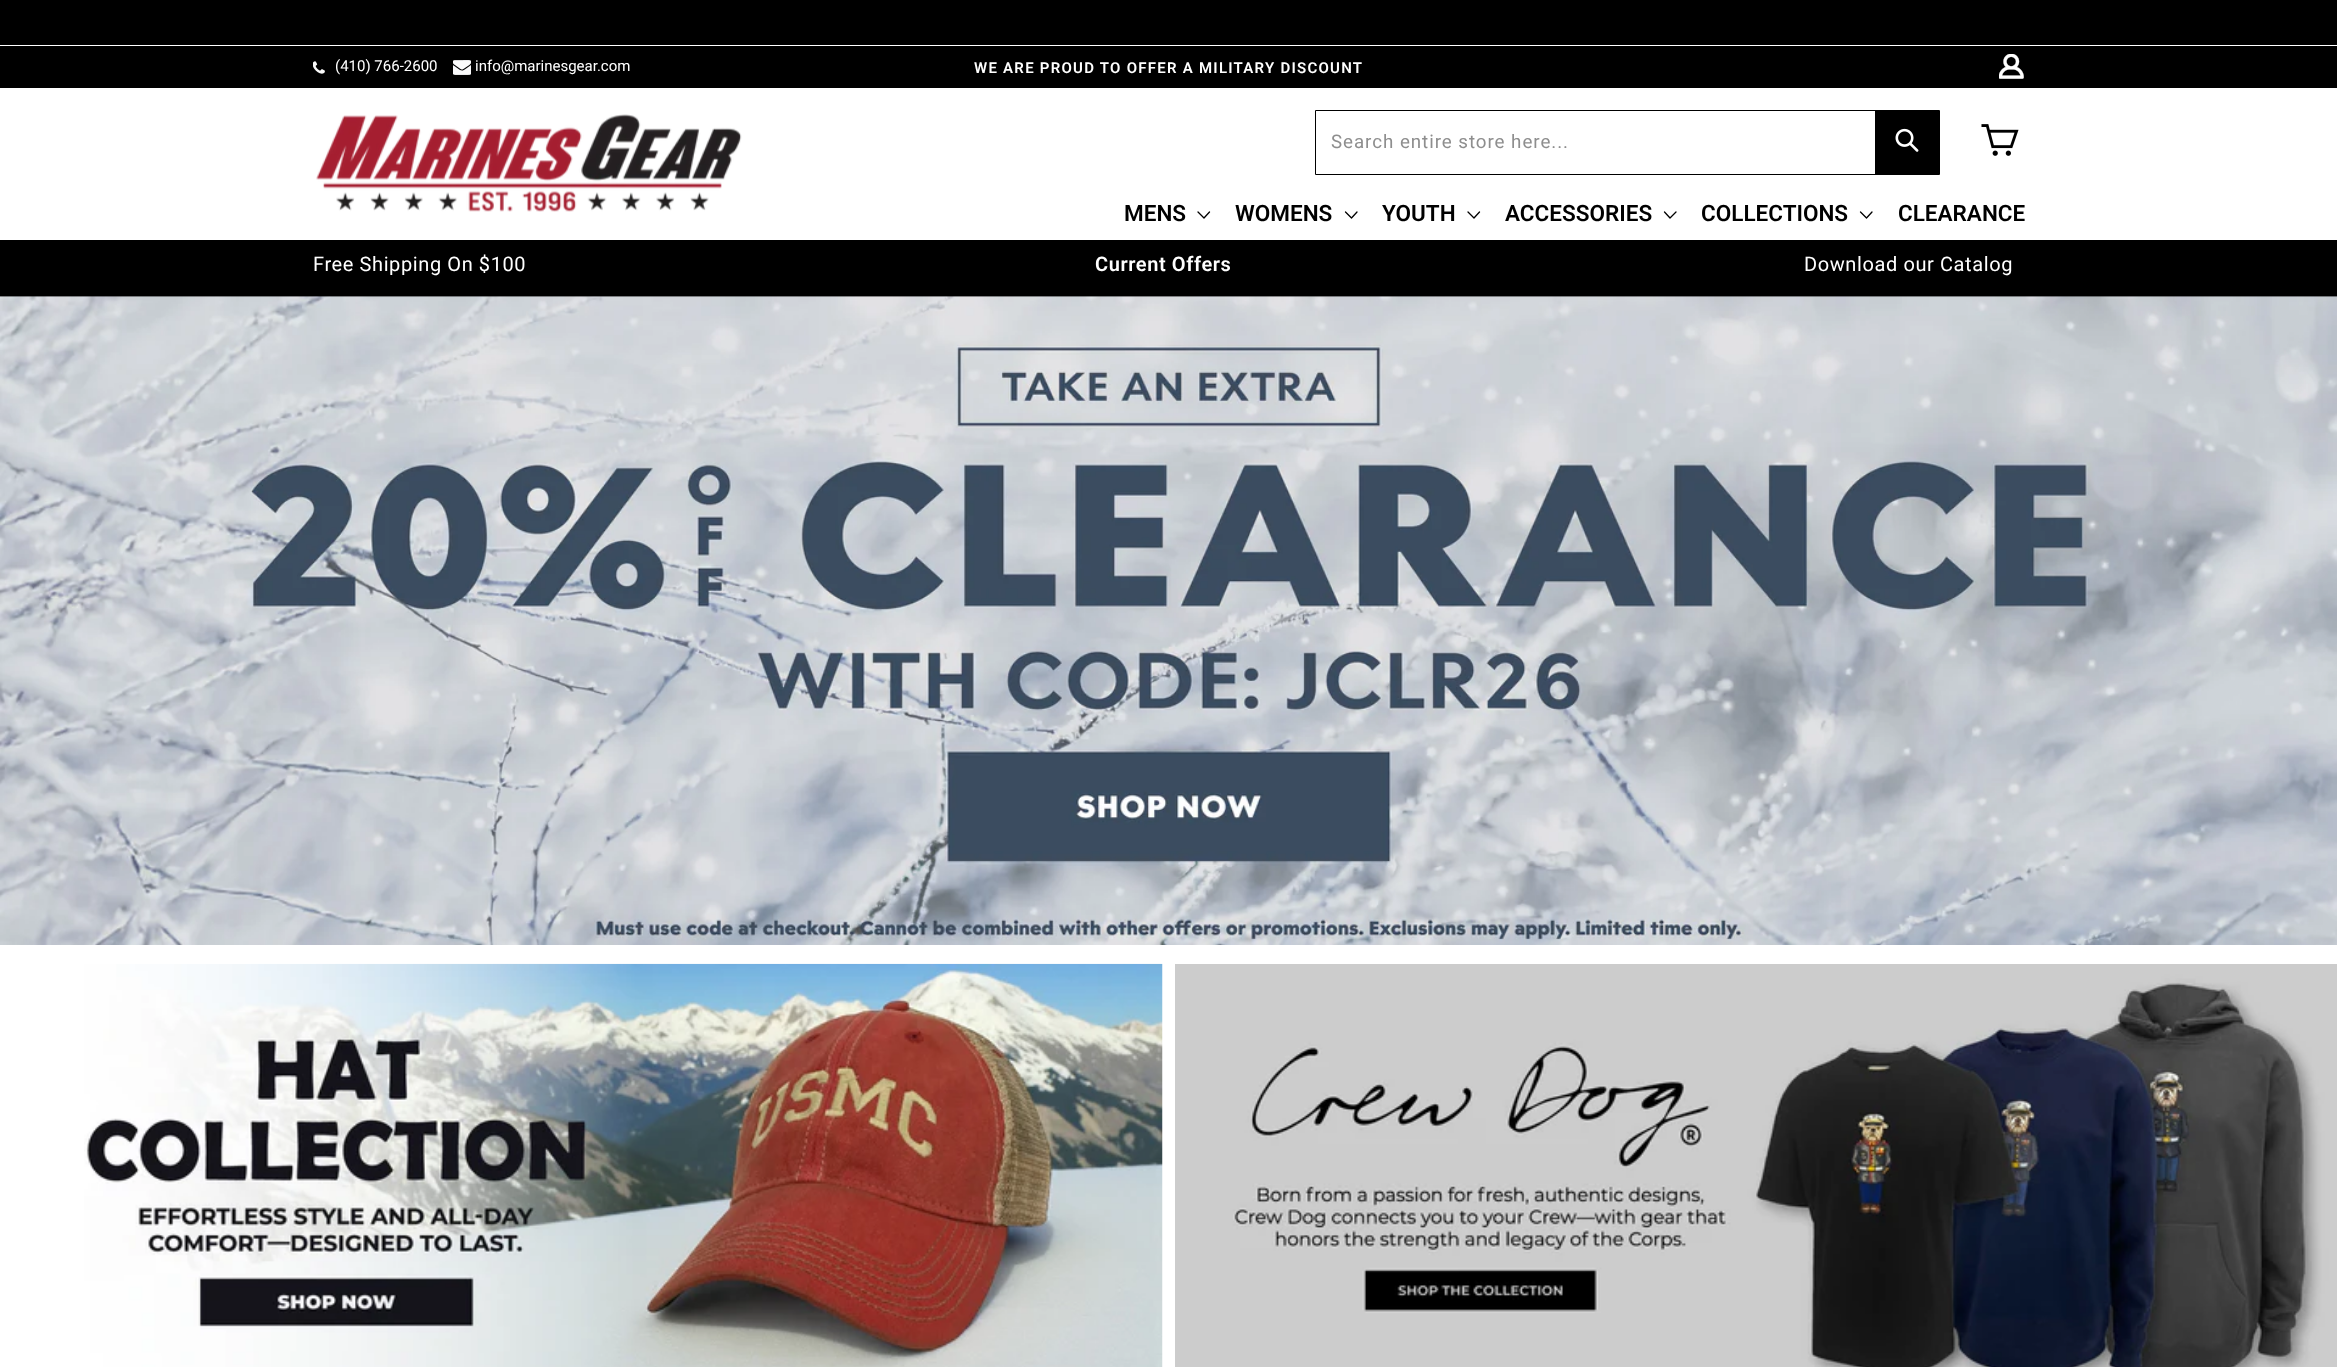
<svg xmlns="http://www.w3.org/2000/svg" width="2337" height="1367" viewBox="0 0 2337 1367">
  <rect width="100%" height="100%" fill="#fff"/>
  <path d="M0 0h2337v45H0z" fill="#000"/>
  <path d="M0 240h2337v56H0z" fill="#000"/>
  <path d="M0 88h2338v152H0z" fill="#00000033" filter="blur(0.5px)"/>
  <path d="M0 46h2337v42H0z" fill="#000"/>
  <image x="313" y="61" width="12" height="13" href="img/1.png"/>
  <image x="453" y="60" width="18" height="15" href="img/2.png"/>
  <image x="1999" y="54" width="25" height="25" href="img/3.png"/>
  <path d="M0 88h2337v152H0z" fill="#fff"/>
  <image x="316" y="114" width="426" height="98" href="img/4.png"/>
  <path d="M1315.5 110.5h624v64H1315.5z" fill="none" stroke="#000"/>
  <path d="M1875 111h64v63H1875z" fill="#000"/>
  <image x="1895" y="128" width="24" height="24" href="img/5.png"/>
  <image x="1981" y="124" width="38" height="32" href="img/6.png"/>
  <path d="M1198 212L1204 218L1209.5 212" fill="none" stroke="#000" stroke-width="1.3" stroke-linecap="round" stroke-linejoin="round"/>
  <path d="M1345.5 212L1351.5 218L1357 212" fill="none" stroke="#000" stroke-width="1.3" stroke-linecap="round" stroke-linejoin="round"/>
  <path d="M1468 212L1474 218L1479.5 212" fill="none" stroke="#000" stroke-width="1.3" stroke-linecap="round" stroke-linejoin="round"/>
  <path d="M1664.5 212L1670 218L1676 212" fill="none" stroke="#000" stroke-width="1.3" stroke-linecap="round" stroke-linejoin="round"/>
  <path d="M1860.5 212L1866.5 218L1872 212" fill="none" stroke="#000" stroke-width="1.3" stroke-linecap="round" stroke-linejoin="round"/>
  <path d="M0 296h2337v1H0z" fill="#0f0f0f"/>
  <image x="0" y="296" width="2337" height="649" href="img/7.png"/>
  <image x="84" y="963" width="1079" height="404" href="img/8.png"/>
  <image x="1175" y="964" width="1162" height="403" href="img/9.png"/>
  <g font-family="Roboto" font-size="15" fill="#fff">
    <text x="335" y="71">(410) 766-2600</text>
    <text x="475" y="71">info@marinesgear.com</text>
  </g>
  <text x="974" y="73" font-family="Roboto" font-size="15" font-weight="600" letter-spacing="1.25" fill="#fff">WE ARE PROUD TO OFFER A MILITARY DISCOUNT</text>
  <text x="1331" y="148" font-family="Roboto" font-size="18.75" letter-spacing="0.95" fill="#8e8e8e">Search entire store here...</text>
  <g font-family="Roboto" font-size="22.5" font-weight="600" fill="#000">
    <text x="1124" y="221">MENS</text>
    <text x="1235" y="221">WOMENS</text>
    <text x="1382" y="221">YOUTH</text>
    <text x="1505" y="221">ACCESSORIES</text>
    <text x="1701" y="221">COLLECTIONS</text>
    <text x="1898" y="221">CLEARANCE</text>
  </g>
  <text x="313" y="271" font-family="Roboto" font-size="20" letter-spacing="0.6" fill="#fff">Free Shipping On $100</text>
  <text x="1095" y="271" font-family="Roboto" font-size="20" font-weight="600" letter-spacing="0.6" fill="#fff">Current Offers</text>
  <text x="1804" y="271" font-family="Roboto" font-size="20" letter-spacing="0.6" fill="#fff">Download our Catalog</text>
</svg>
